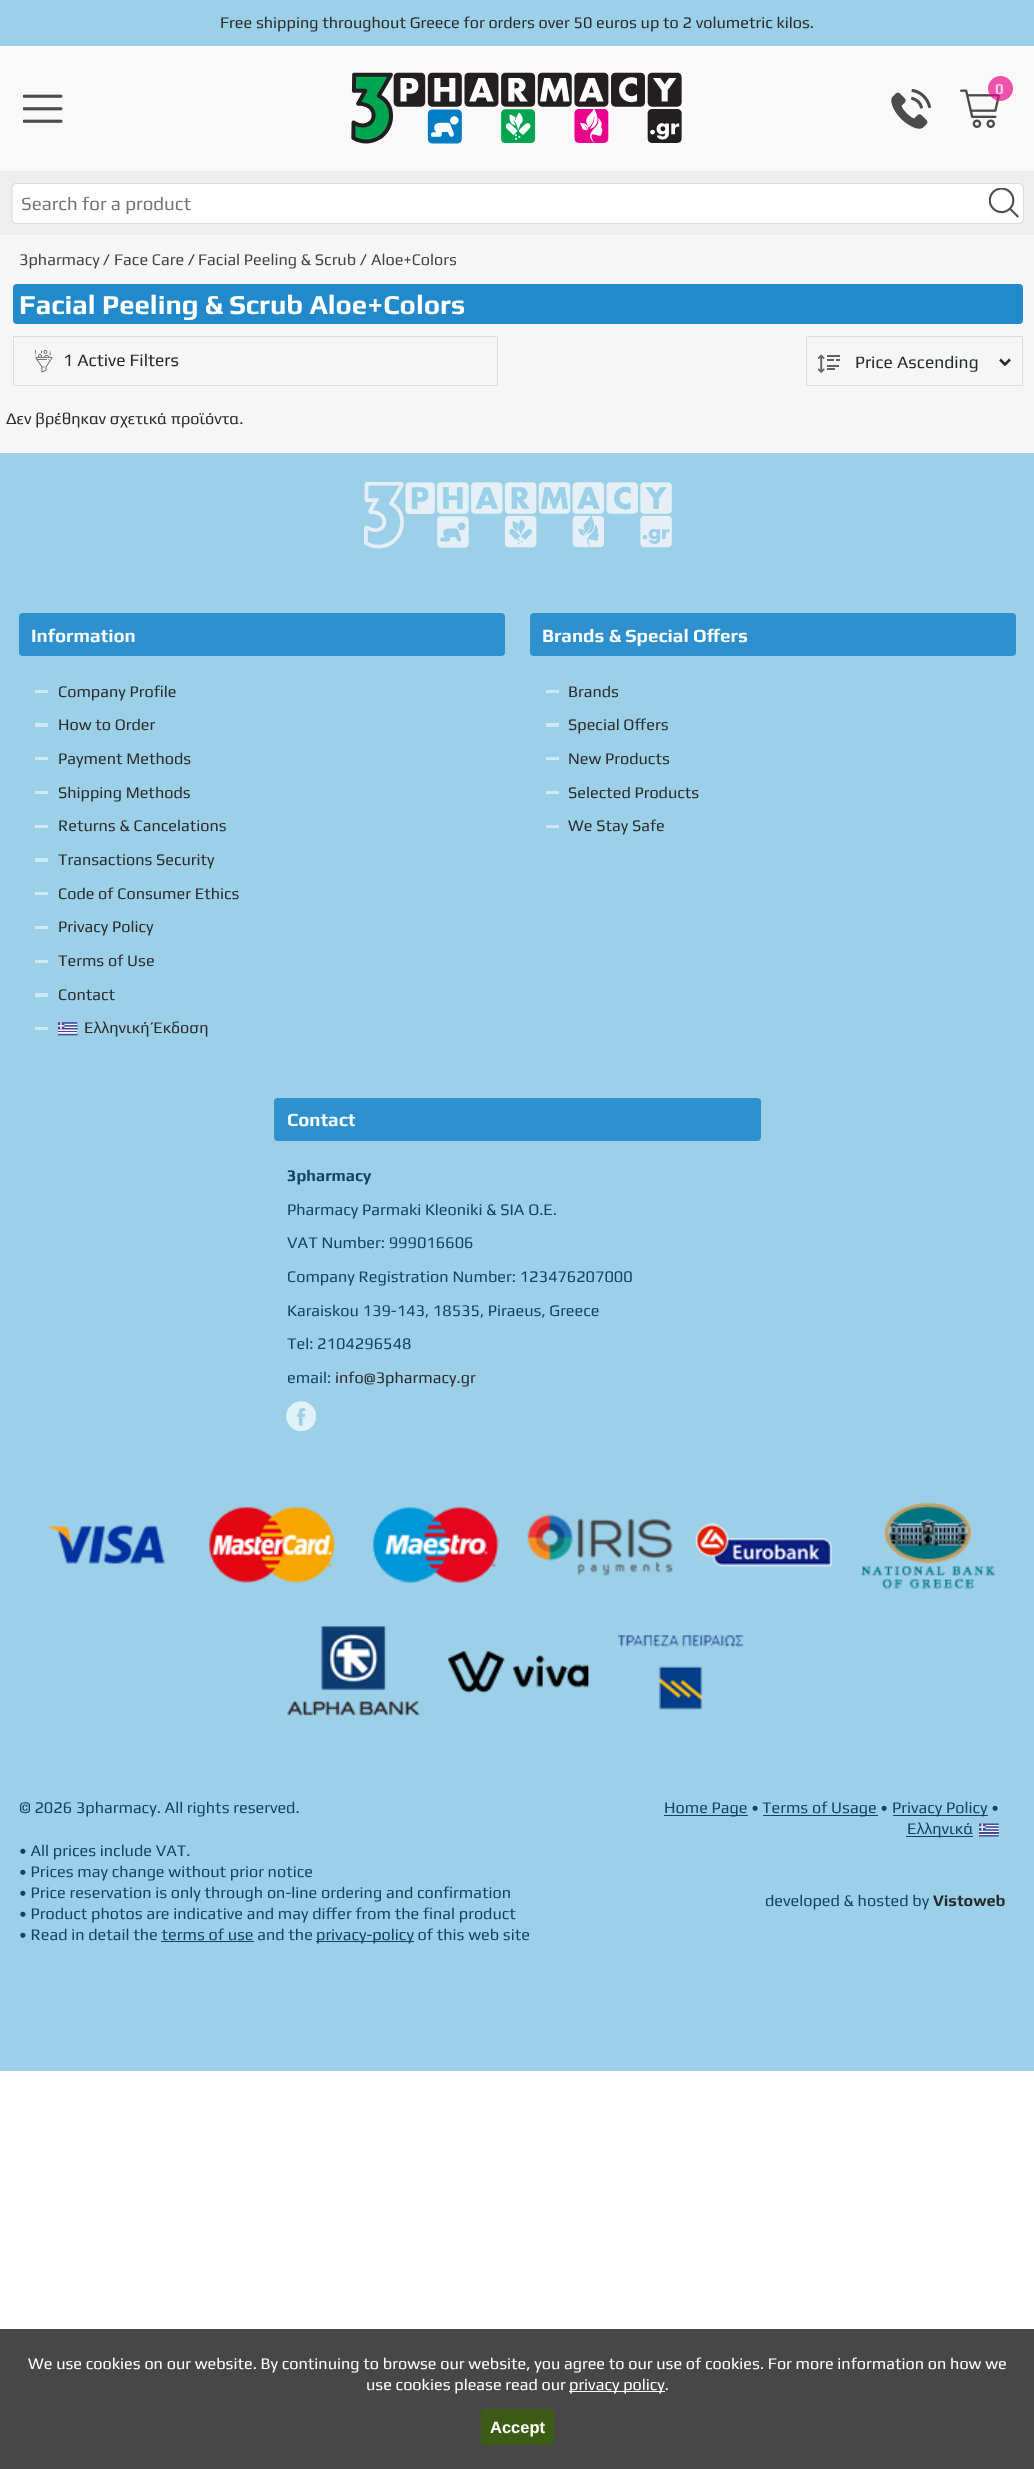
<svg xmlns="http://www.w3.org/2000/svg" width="1034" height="2469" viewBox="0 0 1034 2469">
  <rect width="100%" height="100%" fill="#fff"/>
  <path d="M0 0h1034v46H0z" fill="#9cd0e8"/>
  <path d="M0 46h1034v125H0z" fill="#f9f9f9"/>
  <image x="351" y="72" width="331" height="72" href="img/1.png"/>
  <image x="891" y="89" width="40" height="40" href="img/2.png"/>
  <image x="960" y="89" width="40" height="39" href="img/3.png"/>
  <circle cx="1000.5" cy="88.5" r="12.5" fill="#ea0b8cb3"/>
  <image x="23" y="94" width="40" height="29" href="img/4.png"/>
  <path d="M0 171h1034v64H0z" fill="#eee"/>
  <rect x="13" y="184" width="1010" height="39" rx="4" fill="#fff"/>
  <rect x="11.5" y="183.5" width="1012" height="40" rx="4.5" fill="none" stroke="#ddd"/>
  <image x="989" y="188" width="30" height="30" href="img/5.png"/>
  <path d="M0 235h1034v218H0z" fill="#f6f6f6"/>
  <rect x="13" y="284" width="1010" height="40" rx="4" fill="#2289ca"/>
  <path d="M13.5 336.5h484v49H13.5z" fill="none" stroke="#ddd"/>
  <image x="35" y="350" width="18" height="23" href="img/6.png"/>
  <path d="M806.5 336.5h216v49H806.5z" fill="none" stroke="#ddd"/>
  <image x="818" y="354" width="22" height="19" href="img/7.png"/>
  <path d="M1000 359.5L1005 364.5L1010 359.5" fill="none" stroke="#252a2b" stroke-width="2.5"/>
  <path d="M0 453h1034v1618H0z" fill="#9cd0e8"/>
  <image x="363" y="481" width="309" height="68" href="img/8.png"/>
  <rect x="19" y="613" width="486" height="43" rx="4" fill="#2e90cd"/>
  <path d="M35 690h13v3H35z" fill="#cee8f4"/>
  <path d="M35 723h13v4H35z" fill="#cee8f4"/>
  <path d="M35 757h13v3H35z" fill="#cee8f4"/>
  <path d="M35 791h13v3H35z" fill="#cee8f4"/>
  <path d="M35 825h13v3H35z" fill="#cee8f4"/>
  <path d="M35 858h13v4H35z" fill="#cee8f4"/>
  <path d="M35 892h13v3H35z" fill="#cee8f4"/>
  <path d="M35 926h13v3H35z" fill="#cee8f4"/>
  <path d="M35 960h13v3H35z" fill="#cee8f4"/>
  <path d="M35 993h13v4H35z" fill="#cee8f4"/>
  <path d="M35 1027h13v3H35z" fill="#cee8f4"/>
  <image x="58" y="1022" width="20" height="14" href="img/9.png"/>
  <rect x="530" y="613" width="486" height="43" rx="4" fill="#2e90cd"/>
  <path d="M546 690h13v3H546z" fill="#cee8f4"/>
  <path d="M546 723h13v4H546z" fill="#cee8f4"/>
  <path d="M546 757h13v3H546z" fill="#cee8f4"/>
  <path d="M546 791h13v3H546z" fill="#cee8f4"/>
  <path d="M546 825h13v3H546z" fill="#cee8f4"/>
  <rect x="274" y="1098" width="487" height="43" rx="4" fill="#2e90cd"/>
  <image x="286" y="1401" width="30" height="30" href="img/10.png"/>
  <image x="48" y="1524" width="118" height="40" href="img/11.png"/>
  <image x="209" y="1507" width="126" height="76" href="img/12.png"/>
  <image x="372" y="1507" width="127" height="76" href="img/13.png"/>
  <image x="527" y="1514" width="146" height="62" href="img/14.png"/>
  <image x="695" y="1523" width="137" height="44" href="img/15.png"/>
  <image x="861" y="1502" width="135" height="87" href="img/16.png"/>
  <image x="287" y="1626" width="134" height="90" href="img/17.png"/>
  <image x="448" y="1650" width="141" height="43" href="img/18.png"/>
  <image x="617" y="1635" width="127" height="75" href="img/19.png"/>
  <path d="M316 1941h98v1H316z" fill="#104461"/>
  <path d="M161 1941h93v1H161z" fill="#104461"/>
  <path d="M664 1815h84v1H664z" fill="#104461"/>
  <path d="M763 1815h115v1H763z" fill="#104461"/>
  <path d="M893 1815h95v1H893z" fill="#104461"/>
  <path d="M906 1836h67v1H906z" fill="#104461"/>
  <image x="979" y="1823" width="20" height="14" href="img/20.png"/>
  <path d="M0 2329h1034v140H0z" fill="#474747"/>
  <path d="M569 2391h96v1H569z" fill="#fff"/>
  <rect x="481" y="2409" width="73" height="36" rx="2.5" fill="#3d5b15"/>
  <text x="220" y="28" font-family="Play" font-size="16.25" fill="#2b2b2b">Free shipping throughout Greece for orders over 50 euros up to 2 volumetric kilos.</text>
  <text x="995" y="94" font-family="Play" font-size="15" font-weight="bold" fill="#facbe6">0</text>
  <text x="21" y="210" font-family="Play" font-size="18.75" fill="#757575">Search for a product</text>
  <text x="19" y="265" font-family="Play" font-size="16.25" fill="#444">3pharmacy</text>
  <text x="103" y="265" font-family="Play" font-size="16.25" fill="#2b2b2b">/</text>
  <text x="114" y="265" font-family="Play" font-size="16.25" fill="#444">Face Care</text>
  <text x="188" y="265" font-family="Play" font-size="16.25" fill="#2b2b2b">/</text>
  <text x="198" y="265" font-family="Play" font-size="16.25" fill="#444">Facial Peeling &amp; Scrub</text>
  <text x="360" y="265" font-family="Play" font-size="16.25" fill="#2b2b2b">/</text>
  <text x="371" y="265" font-family="Play" font-size="16.25" fill="#444">Aloe+Colors</text>
  <text x="19" y="314" font-family="Play" font-size="27.5" font-weight="bold" fill="#fff">Facial Peeling &amp; Scrub Aloe+Colors</text>
  <g font-family="Play" font-size="17.5" fill="#252a2b">
    <text x="63" y="366">1 Active Filters</text>
    <text x="855" y="368">Price Ascending</text>
  </g>
  <text x="6" y="424" font-family="Play" font-size="16.25" fill="#2b2b2b">Δεν βρέθηκαν σχετικά προϊόντα.</text>
  <text x="31" y="642" font-family="Play" font-size="18.75" font-weight="bold" fill="#f5fafd">Information</text>
  <g font-family="Play" font-size="16.25" fill="#2b2b2b">
    <text x="58" y="697">Company Profile</text>
    <text x="58" y="730">How to Order</text>
    <text x="58" y="764">Payment Methods</text>
    <text x="58" y="798">Shipping Methods</text>
    <text x="58" y="831">Returns &amp; Cancelations</text>
    <text x="58" y="865">Transactions Security</text>
    <text x="58" y="899">Code of Consumer Ethics</text>
    <text x="58" y="932">Privacy Policy</text>
    <text x="58" y="966">Terms of Use</text>
    <text x="58" y="1000">Contact</text>
    <text x="84" y="1033">Ελληνική Έκδοση</text>
  </g>
  <text x="542" y="642" font-family="Play" font-size="18.75" font-weight="bold" fill="#f5fafd">Brands &amp; Special Offers</text>
  <g font-family="Play" font-size="16.25" fill="#2b2b2b">
    <text x="568" y="697">Brands</text>
    <text x="568" y="730">Special Offers</text>
    <text x="568" y="764">New Products</text>
    <text x="568" y="798">Selected Products</text>
    <text x="568" y="831">We Stay Safe</text>
  </g>
  <text x="287" y="1126" font-family="Play" font-size="18.75" font-weight="bold" fill="#f5fafd">Contact</text>
  <text x="287" y="1181" font-family="Play" font-size="16.25" font-weight="bold" fill="#104461">3pharmacy</text>
  <g font-family="Play" font-size="16.25" fill="#104461">
    <text x="287" y="1215">Pharmacy Parmaki Kleoniki &amp; SIA O.E.</text>
    <text x="287" y="1248">VAT Number: 999016606</text>
    <text x="287" y="1282">Company Registration Number: 123476207000</text>
    <text x="287" y="1316">Karaiskou 139-143, 18535, Piraeus, Greece</text>
    <text x="287" y="1349">Tel: 2104296548</text>
    <text x="287" y="1383">email:</text>
  </g>
  <text x="335" y="1383" font-family="Play" font-size="16.25" fill="#2b2b2b">info@3pharmacy.gr</text>
  <g font-family="Play" font-size="16.25" fill="#104461">
    <text x="19" y="1813">© 2026 3pharmacy. All rights reserved.</text>
    <text x="19" y="1856">• All prices include VAT.</text>
    <text x="19" y="1877">• Prices may change without prior notice</text>
    <text x="19" y="1898">• Price reservation is only through on-line ordering and confirmation</text>
    <text x="19" y="1919">• Product photos are indicative and may differ from the final product</text>
    <text x="19" y="1940">• Read in detail the terms of use and the</text>
    <text x="316" y="1940">privacy-policy of this web site</text>
    <text x="664" y="1813">Home Page •</text>
    <text x="762" y="1813">Terms of Usage •</text>
    <text x="892" y="1813">Privacy Policy •</text>
    <text x="907" y="1834">Ελληνικά</text>
    <text x="765" y="1906">developed &amp; hosted by</text>
  </g>
  <text x="933" y="1906" font-family="Play" font-size="16.25" font-weight="bold" fill="#252a2b">Vistoweb</text>
  <g font-family="Play" font-size="16.25" fill="#fff">
    <text x="28" y="2369">We use cookies on our website. By continuing to browse our website, you agree to our use of cookies. For more information on how we</text>
    <text x="366" y="2390">use cookies please read our</text>
    <text x="569" y="2390">privacy policy.</text>
  </g>
  <text x="490" y="2433" font-family="Liberation Sans" font-size="16.5" font-weight="bold" fill="#fff">Accept</text>
</svg>
